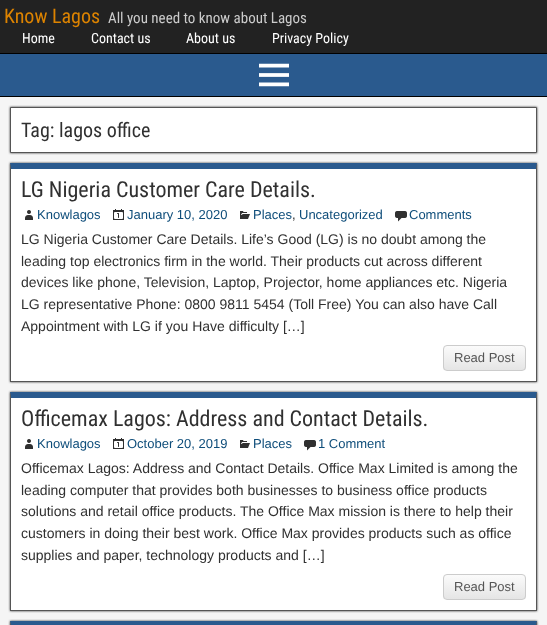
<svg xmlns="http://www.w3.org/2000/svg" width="547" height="625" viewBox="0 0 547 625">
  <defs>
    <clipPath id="clip1"><rect x="443" y="345" width="83" height="26" rx="4"/></clipPath>
    <linearGradient id="g1" gradientUnits="userSpaceOnUse" x1="485" y1="346" x2="485" y2="370"><stop offset="0" stop-color="#fbfbfb"/><stop offset="1" stop-color="#e5e5e5"/></linearGradient>
    <clipPath id="clip2"><rect x="443" y="574" width="83" height="26" rx="4"/></clipPath>
    <linearGradient id="g2" gradientUnits="userSpaceOnUse" x1="485" y1="575" x2="485" y2="599"><stop offset="0" stop-color="#fbfbfb"/><stop offset="1" stop-color="#e5e5e5"/></linearGradient>
  </defs>
  <rect width="100%" height="100%" fill="#222"/>
  <path d="M0 53h547v1H0z" fill="#000"/>
  <path d="M0 54h547v42H0z" fill="#2a5a8e"/>
  <path d="M0 96h547v1H0z" fill="#000"/>
  <image x="259" y="63" width="30" height="24" href="img/1.png"/>
  <path d="M0 97h547v528H0z" fill="#f5f5f5"/>
  <path d="M10 107h527v46H10z" fill="#333" filter="blur(1px)"/>
  <path d="M10.5 107.5h526v45H10.5z" fill="#fff" stroke="#555"/>
  <path d="M10 163h527v219H10z" fill="#333" filter="blur(1px)"/>
  <path d="M11 169h525v212H11z" fill="#fff"/>
  <path d="M10 163H537L536 169H11Z" fill="#2a5a8e"/>
  <path d="M537 163V382L536 381V169Z" fill="#555"/>
  <path d="M10 381h527v1H10z" fill="#555"/>
  <path d="M10 382V163L11 169V381Z" fill="#555"/>
  <image x="25" y="210" width="8" height="10" href="img/2.png"/>
  <image x="113" y="209" width="11" height="11" href="img/3.png"/>
  <image x="240" y="211" width="10" height="8" href="img/4.png"/>
  <image x="395" y="211" width="12" height="11" href="img/5.png"/>
  <g clip-path="url(#clip1)">
    <path d="M443 346h83v24H443z" fill="url(#g1)"/>
  </g>
  <rect x="443.5" y="345.5" width="82" height="25" rx="3.5" fill="none" stroke="#ccc"/>
  <path d="M10 392h527v219H10z" fill="#333" filter="blur(1px)"/>
  <path d="M11 398h525v212H11z" fill="#fff"/>
  <path d="M10 392H537L536 398H11Z" fill="#2a5a8e"/>
  <path d="M537 392V611L536 610V398Z" fill="#555"/>
  <path d="M10 610h527v1H10z" fill="#555"/>
  <path d="M10 611V392L11 398V610Z" fill="#555"/>
  <image x="25" y="439" width="8" height="10" href="img/2.png"/>
  <image x="113" y="438" width="11" height="11" href="img/3.png"/>
  <image x="240" y="440" width="10" height="8" href="img/4.png"/>
  <image x="304" y="440" width="12" height="11" href="img/5.png"/>
  <g clip-path="url(#clip2)">
    <path d="M443 575h83v24H443z" fill="url(#g2)"/>
  </g>
  <rect x="443.5" y="574.5" width="82" height="25" rx="3.5" fill="none" stroke="#ccc"/>
  <path d="M10 621h527v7H10z" fill="#333" filter="blur(1px)"/>
  <path d="M10 621H537L536 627H11Z" fill="#2a5a8e"/>
  <path d="M537 621V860L536 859V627Z" fill="#555"/>
  <path d="M10 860V621L11 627V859Z" fill="#555"/>
  <text x="4" y="23" font-family="Roboto Condensed" font-size="20" fill="#dc8300">Know Lagos</text>
  <text x="108" y="23" font-family="Roboto Condensed" font-size="15" fill="#ccc">All you need to know about Lagos</text>
  <g font-family="Roboto Condensed" font-size="14" fill="#fff">
    <text x="22" y="43">Home</text>
    <text x="91" y="43">Contact us</text>
    <text x="186" y="43">About us</text>
    <text x="272" y="43">Privacy Policy</text>
  </g>
  <text x="21" y="137" font-family="Roboto Condensed" font-size="20" fill="#303030">Tag: lagos office</text>
  <text x="21" y="197" font-family="Roboto Condensed" font-size="22" fill="#303030">LG Nigeria Customer Care Details.</text>
  <g font-family="Liberation Sans" font-size="13" fill="#0e4d7a">
    <text x="37" y="219">Knowlagos</text>
    <text x="127" y="219">January 10, 2020</text>
    <text x="253" y="219">Places</text>
  </g>
  <text x="292" y="219" font-family="Liberation Sans" font-size="13" fill="#303030">,</text>
  <g font-family="Liberation Sans" font-size="13" fill="#0e4d7a">
    <text x="299" y="219">Uncategorized</text>
    <text x="409" y="219">Comments</text>
  </g>
  <g font-family="Arimo" font-size="14" fill="#303030">
    <text x="21" y="244">LG Nigeria Customer Care Details. Life’s Good (LG) is no doubt among the</text>
    <text x="21" y="266">leading top electronics firm in the world. Their products cut across different</text>
    <text x="21" y="287">devices like phone, Television, Laptop, Projector, home appliances etc. Nigeria</text>
    <text x="21" y="309">LG representative Phone: 0800 9811 5454 (Toll Free) You can also have Call</text>
    <text x="21" y="331">Appointment with LG if you Have difficulty […]</text>
  </g>
  <text x="454" y="362" font-family="Liberation Sans" font-size="13" fill="#555">Read Post</text>
  <text x="21" y="426" font-family="Roboto Condensed" font-size="22" fill="#303030">Officemax Lagos: Address and Contact Details.</text>
  <g font-family="Liberation Sans" font-size="13" fill="#0e4d7a">
    <text x="37" y="448">Knowlagos</text>
    <text x="127" y="448">October 20, 2019</text>
    <text x="253" y="448">Places</text>
    <text x="318" y="448">1 Comment</text>
  </g>
  <g font-family="Arimo" font-size="14" fill="#303030">
    <text x="21" y="473">Officemax Lagos: Address and Contact Details. Office Max Limited is among the</text>
    <text x="21" y="495">leading computer that provides both businesses to business office products</text>
    <text x="21" y="516">solutions and retail office products. The Office Max mission is there to help their</text>
    <text x="21" y="538">customers in doing their best work. Office Max provides products such as office</text>
    <text x="21" y="560">supplies and paper, technology products and […]</text>
  </g>
  <text x="454" y="591" font-family="Liberation Sans" font-size="13" fill="#555">Read Post</text>
</svg>
